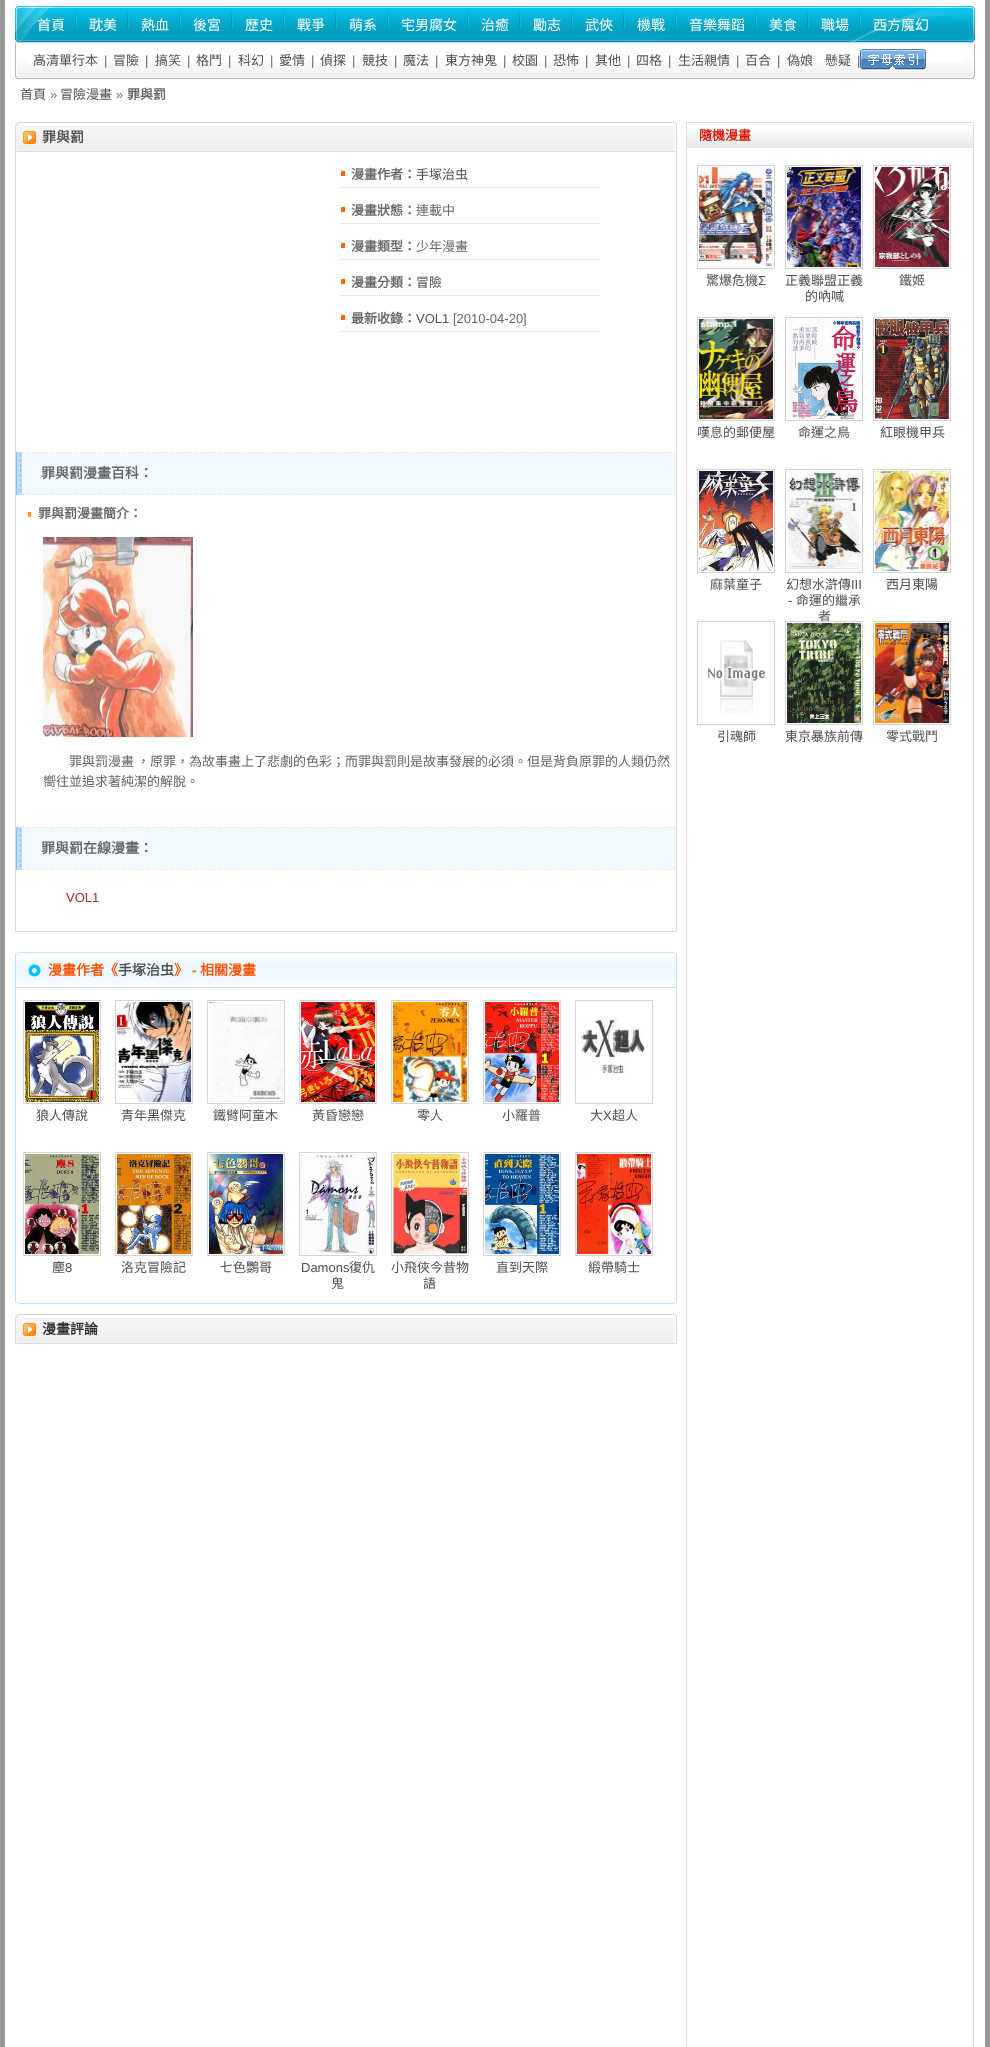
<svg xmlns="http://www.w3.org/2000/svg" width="990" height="2047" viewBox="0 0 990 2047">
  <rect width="100%" height="100%" fill="#989898"/>
  <path d="M5 0h980v2047H5z" fill="#fff"/>
  <image x="15" y="6" width="960" height="37" href="img/1.png"/>
  <image x="75" y="11" width="2" height="18" href="img/2.png"/>
  <image x="127" y="11" width="2" height="18" href="img/2.png"/>
  <image x="179" y="11" width="2" height="18" href="img/2.png"/>
  <image x="231" y="11" width="2" height="18" href="img/2.png"/>
  <image x="283" y="11" width="2" height="18" href="img/2.png"/>
  <image x="335" y="11" width="2" height="18" href="img/2.png"/>
  <image x="387" y="11" width="2" height="18" href="img/2.png"/>
  <image x="467" y="11" width="2" height="18" href="img/2.png"/>
  <image x="519" y="11" width="2" height="18" href="img/2.png"/>
  <image x="571" y="11" width="2" height="18" href="img/2.png"/>
  <image x="623" y="11" width="2" height="18" href="img/2.png"/>
  <image x="675" y="11" width="2" height="18" href="img/2.png"/>
  <image x="755" y="11" width="2" height="18" href="img/2.png"/>
  <image x="807" y="11" width="2" height="18" href="img/2.png"/>
  <image x="859" y="11" width="2" height="18" href="img/2.png"/>
  <image x="15" y="43" width="12" height="36" href="img/3.png"/>
  <image x="27" y="62" width="936" height="17" href="img/4.png"/>
  <image x="860" y="49" width="66" height="21" href="img/5.png"/>
  <image x="963" y="43" width="12" height="36" href="img/6.png"/>
  <image x="15" y="122" width="660" height="30" href="img/7.png"/>
  <image x="675" y="122" width="2" height="30" href="img/8.png"/>
  <path d="M676 152h1v780H676z" fill="#dbdbdb"/>
  <path d="M15 931h662v1H15z" fill="#dbdbdb"/>
  <path d="M15 152h1v780H15z" fill="#dbdbdb"/>
  <path d="M341 171h4v5H341z" fill="#f60"/>
  <path d="M341 187.5H601" fill="none" stroke="#cad8e5" stroke-dasharray="1 1"/>
  <path d="M341 207h4v5H341z" fill="#f60"/>
  <path d="M341 223.5H601" fill="none" stroke="#cad8e5" stroke-dasharray="1 1"/>
  <path d="M341 243h4v5H341z" fill="#f60"/>
  <path d="M341 259.5H601" fill="none" stroke="#cad8e5" stroke-dasharray="1 1"/>
  <path d="M341 279h4v5H341z" fill="#f60"/>
  <path d="M341 295.5H601" fill="none" stroke="#cad8e5" stroke-dasharray="1 1"/>
  <path d="M341 315h4v5H341z" fill="#f60"/>
  <path d="M341 331.5H601" fill="none" stroke="#cad8e5" stroke-dasharray="1 1"/>
  <image x="16" y="452" width="660" height="43" href="img/9.png"/>
  <path d="M28 512h3v5H28z" fill="#f90"/>
  <image x="43" y="537" width="150" height="200" href="img/10.png"/>
  <image x="16" y="827" width="660" height="43" href="img/9.png"/>
  <path d="M15.5 952.5h661v351H15.5z" fill="none" stroke="#bfe2fe"/>
  <image x="16" y="957" width="660" height="31" href="img/11.png"/>
  <image x="15" y="952" width="4" height="3" href="img/12.png"/>
  <image x="673" y="952" width="4" height="3" href="img/13.png"/>
  <image x="28" y="964" width="13" height="13" href="img/14.png"/>
  <path d="M23.5 1000.5h77v103H23.5z" fill="none" stroke="#d3d3d3"/>
  <image x="25" y="1002" width="74" height="100" href="img/15.png"/>
  <path d="M115.5 1000.5h77v103H115.5z" fill="none" stroke="#d3d3d3"/>
  <image x="117" y="1002" width="74" height="100" href="img/16.png"/>
  <path d="M207.5 1000.5h77v103H207.5z" fill="none" stroke="#d3d3d3"/>
  <image x="209" y="1002" width="74" height="100" href="img/17.png"/>
  <path d="M299.5 1000.5h77v103H299.5z" fill="none" stroke="#d3d3d3"/>
  <image x="301" y="1002" width="74" height="100" href="img/18.png"/>
  <path d="M391.5 1000.5h77v103H391.5z" fill="none" stroke="#d3d3d3"/>
  <image x="393" y="1002" width="74" height="100" href="img/19.png"/>
  <path d="M483.5 1000.5h77v103H483.5z" fill="none" stroke="#d3d3d3"/>
  <image x="485" y="1002" width="74" height="100" href="img/20.png"/>
  <path d="M575.5 1000.5h77v103H575.5z" fill="none" stroke="#d3d3d3"/>
  <image x="577" y="1017" width="68" height="58" href="img/21.png"/>
  <path d="M23.5 1152.5h77v103H23.5z" fill="none" stroke="#d3d3d3"/>
  <image x="25" y="1154" width="74" height="100" href="img/22.png"/>
  <path d="M115.5 1152.5h77v103H115.5z" fill="none" stroke="#d3d3d3"/>
  <image x="117" y="1154" width="74" height="100" href="img/23.png"/>
  <path d="M207.5 1152.5h77v103H207.5z" fill="none" stroke="#d3d3d3"/>
  <image x="209" y="1154" width="74" height="100" href="img/24.png"/>
  <path d="M299.5 1152.5h77v103H299.5z" fill="none" stroke="#d3d3d3"/>
  <image x="301" y="1154" width="74" height="100" href="img/25.png"/>
  <path d="M391.5 1152.5h77v103H391.5z" fill="none" stroke="#d3d3d3"/>
  <image x="393" y="1154" width="74" height="100" href="img/26.png"/>
  <path d="M483.5 1152.5h77v103H483.5z" fill="none" stroke="#d3d3d3"/>
  <image x="485" y="1154" width="74" height="100" href="img/27.png"/>
  <path d="M575.5 1152.5h77v103H575.5z" fill="none" stroke="#d3d3d3"/>
  <image x="577" y="1154" width="74" height="100" href="img/28.png"/>
  <image x="15" y="1301" width="4" height="3" href="img/29.png"/>
  <image x="673" y="1301" width="4" height="3" href="img/30.png"/>
  <image x="15" y="1314" width="660" height="30" href="img/7.png"/>
  <image x="675" y="1314" width="2" height="30" href="img/8.png"/>
  <path d="M686.5 122.5h287v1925H686.5z" fill="none" stroke="#dedede"/>
  <image x="687" y="130" width="286" height="18" href="img/31.png"/>
  <path d="M697.5 165.5h77v103H697.5z" fill="none" stroke="#d3d3d3"/>
  <image x="699" y="167" width="74" height="100" href="img/32.png"/>
  <path d="M785.5 165.5h77v103H785.5z" fill="none" stroke="#d3d3d3"/>
  <image x="787" y="167" width="74" height="100" href="img/33.png"/>
  <path d="M873.5 165.5h77v103H873.5z" fill="none" stroke="#d3d3d3"/>
  <image x="875" y="167" width="74" height="100" href="img/34.png"/>
  <path d="M697.5 317.5h77v103H697.5z" fill="none" stroke="#d3d3d3"/>
  <image x="699" y="319" width="74" height="100" href="img/35.png"/>
  <path d="M785.5 317.5h77v103H785.5z" fill="none" stroke="#d3d3d3"/>
  <image x="787" y="319" width="74" height="100" href="img/36.png"/>
  <path d="M873.5 317.5h77v103H873.5z" fill="none" stroke="#d3d3d3"/>
  <image x="875" y="319" width="74" height="100" href="img/37.png"/>
  <path d="M697.5 469.5h77v103H697.5z" fill="none" stroke="#d3d3d3"/>
  <image x="699" y="471" width="74" height="100" href="img/38.png"/>
  <path d="M785.5 469.5h77v103H785.5z" fill="none" stroke="#d3d3d3"/>
  <image x="787" y="471" width="74" height="100" href="img/39.png"/>
  <path d="M873.5 469.5h77v103H873.5z" fill="none" stroke="#d3d3d3"/>
  <image x="875" y="471" width="74" height="100" href="img/40.png"/>
  <path d="M697.5 621.5h77v103H697.5z" fill="none" stroke="#d3d3d3"/>
  <image x="708" y="640" width="57" height="74" href="img/41.png"/>
  <path d="M873.5 621.5h77v103H873.5z" fill="none" stroke="#d3d3d3"/>
  <image x="875" y="623" width="74" height="100" href="img/43.png"/>
  <g font-family="Noto Sans CJK TC" font-size="14" fill="#fff">
    <text x="37" y="30">首頁</text>
    <text x="89" y="30">耽美</text>
    <text x="141" y="30">熱血</text>
    <text x="193" y="30">後宮</text>
    <text x="245" y="30">歷史</text>
    <text x="297" y="30">戰爭</text>
    <text x="349" y="30">萌系</text>
    <text x="401" y="30">宅男腐女</text>
    <text x="481" y="30">治癒</text>
    <text x="533" y="30">勵志</text>
    <text x="585" y="30">武俠</text>
    <text x="637" y="30">機戰</text>
    <text x="689" y="30">音樂舞蹈</text>
    <text x="769" y="30">美食</text>
    <text x="821" y="30">職場</text>
    <text x="873" y="30">西方魔幻</text>
  </g>
  <text x="33" y="65" font-family="Noto Sans CJK TC" font-size="13" fill="#515151">高清單行本</text>
  <text x="104" y="65" font-family="Liberation Sans" font-size="13" fill="#666">|</text>
  <text x="113" y="65" font-family="Noto Sans CJK TC" font-size="13" fill="#515151">冒險</text>
  <text x="145" y="65" font-family="Liberation Sans" font-size="13" fill="#666">|</text>
  <text x="155" y="65" font-family="Noto Sans CJK TC" font-size="13" fill="#515151">搞笑</text>
  <text x="187" y="65" font-family="Liberation Sans" font-size="13" fill="#666">|</text>
  <text x="196" y="65" font-family="Noto Sans CJK TC" font-size="13" fill="#515151">格鬥</text>
  <text x="228" y="65" font-family="Liberation Sans" font-size="13" fill="#666">|</text>
  <text x="238" y="65" font-family="Noto Sans CJK TC" font-size="13" fill="#515151">科幻</text>
  <text x="270" y="65" font-family="Liberation Sans" font-size="13" fill="#666">|</text>
  <text x="279" y="65" font-family="Noto Sans CJK TC" font-size="13" fill="#515151">愛情</text>
  <text x="311" y="65" font-family="Liberation Sans" font-size="13" fill="#666">|</text>
  <text x="320" y="65" font-family="Noto Sans CJK TC" font-size="13" fill="#515151">偵探</text>
  <text x="352" y="65" font-family="Liberation Sans" font-size="13" fill="#666">|</text>
  <text x="362" y="65" font-family="Noto Sans CJK TC" font-size="13" fill="#515151">競技</text>
  <text x="394" y="65" font-family="Liberation Sans" font-size="13" fill="#666">|</text>
  <text x="403" y="65" font-family="Noto Sans CJK TC" font-size="13" fill="#515151">魔法</text>
  <text x="435" y="65" font-family="Liberation Sans" font-size="13" fill="#666">|</text>
  <text x="445" y="65" font-family="Noto Sans CJK TC" font-size="13" fill="#515151">東方神鬼</text>
  <text x="503" y="65" font-family="Liberation Sans" font-size="13" fill="#666">|</text>
  <text x="512" y="65" font-family="Noto Sans CJK TC" font-size="13" fill="#515151">校園</text>
  <text x="544" y="65" font-family="Liberation Sans" font-size="13" fill="#666">|</text>
  <text x="553" y="65" font-family="Noto Sans CJK TC" font-size="13" fill="#515151">恐怖</text>
  <text x="585" y="65" font-family="Liberation Sans" font-size="13" fill="#666">|</text>
  <text x="595" y="65" font-family="Noto Sans CJK TC" font-size="13" fill="#515151">其他</text>
  <text x="627" y="65" font-family="Liberation Sans" font-size="13" fill="#666">|</text>
  <text x="636" y="65" font-family="Noto Sans CJK TC" font-size="13" fill="#515151">四格</text>
  <text x="668" y="65" font-family="Liberation Sans" font-size="13" fill="#666">|</text>
  <text x="678" y="65" font-family="Noto Sans CJK TC" font-size="13" fill="#515151">生活親情</text>
  <text x="736" y="65" font-family="Liberation Sans" font-size="13" fill="#666">|</text>
  <text x="745" y="65" font-family="Noto Sans CJK TC" font-size="13" fill="#515151">百合</text>
  <text x="777" y="65" font-family="Liberation Sans" font-size="13" fill="#666">|</text>
  <g font-family="Noto Sans CJK TC" font-size="13" fill="#515151">
    <text x="787" y="65">偽娘</text>
    <text x="825" y="65">懸疑</text>
  </g>
  <text x="857" y="65" font-family="Liberation Sans" font-size="13" fill="#666">|</text>
  <text x="20" y="99" font-family="Noto Sans CJK TC" font-size="13" fill="#515151">首頁</text>
  <text x="50" y="99" font-family="Liberation Sans" font-size="13" fill="#666">»</text>
  <text x="60" y="99" font-family="Noto Sans CJK TC" font-size="13" fill="#515151">冒險漫畫</text>
  <text x="116" y="99" font-family="Liberation Sans" font-size="13" fill="#666">»</text>
  <text x="127" y="99" font-family="Noto Sans CJK TC" font-size="13" font-weight="bold" fill="#666">罪與罰</text>
  <text x="42" y="142" font-family="Noto Sans CJK TC" font-size="14" font-weight="bold" fill="#515151">罪與罰</text>
  <text x="351" y="179" font-family="Noto Sans CJK TC" font-size="13" font-weight="bold" fill="#666">漫畫作者：</text>
  <text x="416" y="179" font-family="Noto Sans CJK TC" font-size="13" fill="#515151">手塚治虫</text>
  <text x="351" y="215" font-family="Noto Sans CJK TC" font-size="13" font-weight="bold" fill="#666">漫畫狀態：</text>
  <text x="416" y="215" font-family="Noto Sans CJK TC" font-size="13" fill="#666">連載中</text>
  <text x="351" y="251" font-family="Noto Sans CJK TC" font-size="13" font-weight="bold" fill="#666">漫畫類型：</text>
  <text x="416" y="251" font-family="Noto Sans CJK TC" font-size="13" fill="#666">少年漫畫</text>
  <text x="351" y="287" font-family="Noto Sans CJK TC" font-size="13" font-weight="bold" fill="#666">漫畫分類：</text>
  <text x="416" y="287" font-family="Noto Sans CJK TC" font-size="13" fill="#515151">冒險</text>
  <text x="351" y="323" font-family="Noto Sans CJK TC" font-size="13" font-weight="bold" fill="#666">最新收錄：</text>
  <text x="416" y="323" font-family="Liberation Sans" font-size="13" fill="#515151">VOL1</text>
  <text x="453" y="323" font-family="Liberation Sans" font-size="13" fill="#666">[2010-04-20]</text>
  <text x="41" y="478" font-family="Noto Sans CJK TC" font-size="14" font-weight="bold" fill="#666">罪與罰漫畫百科：</text>
  <text x="38" y="518" font-family="Noto Sans CJK TC" font-size="13" font-weight="bold" fill="#666">罪與罰漫畫簡介：</text>
  <g font-family="Noto Sans CJK TC" font-size="13" fill="#666">
    <text x="69" y="766">罪與罰</text>
    <text x="108" y="766">漫畫 ，原罪，為故事畫上了悲劇的色彩；而罪與罰則是故事發展的必須。但是背負原罪的人類仍然</text>
    <text x="43" y="786">嚮往並追求著純潔的解脫。</text>
  </g>
  <text x="41" y="853" font-family="Noto Sans CJK TC" font-size="14" font-weight="bold" fill="#666">罪與罰在線漫畫：</text>
  <text x="66" y="902" font-family="Liberation Sans" font-size="13" fill="#a52a2a">VOL1</text>
  <text x="48" y="975" font-family="Noto Sans CJK TC" font-size="14" font-weight="bold" fill="#ff4f02">漫畫作者《</text>
  <text x="118" y="975" font-family="Noto Sans CJK TC" font-size="14" font-weight="bold" fill="#515151">手塚治虫</text>
  <text x="174" y="975" font-family="Noto Sans CJK TC" font-size="14" font-weight="bold" fill="#ff4f02">》</text>
  <text x="192" y="975" font-family="Liberation Sans" font-size="14" font-weight="bold" fill="#ff4f02">-</text>
  <text x="200" y="975" font-family="Noto Sans CJK TC" font-size="14" font-weight="bold" fill="#ff4f02">相關漫畫</text>
  <g font-family="Noto Sans CJK TC" font-size="13" fill="#515151">
    <text x="36" y="1120">狼人傳說</text>
    <text x="121" y="1120">青年黑傑克</text>
    <text x="213" y="1120">鐵臂阿童木</text>
    <text x="312" y="1120">黃昏戀戀</text>
    <text x="417" y="1120">零人</text>
    <text x="502" y="1120">小羅普</text>
    <text x="590" y="1120">大</text>
  </g>
  <text x="603" y="1120" font-family="Liberation Sans" font-size="13" fill="#515151">X</text>
  <g font-family="Noto Sans CJK TC" font-size="13" fill="#515151">
    <text x="612" y="1120">超人</text>
    <text x="52" y="1272">塵</text>
  </g>
  <text x="65" y="1272" font-family="Liberation Sans" font-size="13" fill="#515151">8</text>
  <g font-family="Noto Sans CJK TC" font-size="13" fill="#515151">
    <text x="121" y="1272">洛克冒險記</text>
    <text x="220" y="1272">七色鸚哥</text>
  </g>
  <text x="301" y="1272" font-family="Liberation Sans" font-size="13" fill="#515151">Damons</text>
  <g font-family="Noto Sans CJK TC" font-size="13" fill="#515151">
    <text x="349" y="1272">復仇</text>
    <text x="331" y="1288">鬼</text>
    <text x="391" y="1272">小飛俠今昔物</text>
    <text x="423" y="1288">語</text>
    <text x="496" y="1272">直到天際</text>
    <text x="588" y="1272">緞帶騎士</text>
  </g>
  <text x="42" y="1334" font-family="Noto Sans CJK TC" font-size="14" font-weight="bold" fill="#313131">漫畫評論</text>
  <text x="699" y="140" font-family="Noto Sans CJK TC" font-size="13" font-weight="bold" fill="#db1400">隨機漫畫</text>
  <text x="706" y="285" font-family="Noto Sans CJK TC" font-size="13" fill="#515151">驚爆危機</text>
  <text x="758" y="285" font-family="Liberation Sans" font-size="13" fill="#515151">Σ</text>
  <g font-family="Noto Sans CJK TC" font-size="13" fill="#515151">
    <text x="785" y="285">正義聯盟正義</text>
    <text x="805" y="301">的吶喊</text>
    <text x="899" y="285">鐵姬</text>
    <text x="697" y="437">嘆息的郵便屋</text>
    <text x="798" y="437">命運之鳥</text>
    <text x="880" y="437">紅眼機甲兵</text>
    <text x="710" y="589">麻葉童子</text>
    <text x="786" y="589">幻想水滸傳</text>
  </g>
  <g font-family="Liberation Sans" font-size="13" fill="#515151">
    <text x="851" y="589">III</text>
    <text x="788" y="605">-</text>
  </g>
  <g font-family="Noto Sans CJK TC" font-size="13" fill="#515151">
    <text x="796" y="605">命運的繼承</text>
    <text x="818" y="621">者</text>
    <text x="886" y="589">西月東陽</text>
    <text x="717" y="741">引魂師</text>
    <text x="785" y="741">東京暴族前傳</text>
  </g>
  <path d="M821 622h2v1H821z" fill="#fff"/>
  <path d="M785.5 621.5h77v103H785.5z" fill="none" stroke="#d3d3d3"/>
  <image x="787" y="623" width="74" height="100" href="img/42.png"/>
  <text x="886" y="741" font-family="Noto Sans CJK TC" font-size="13" fill="#515151">零式戰鬥</text>
</svg>
